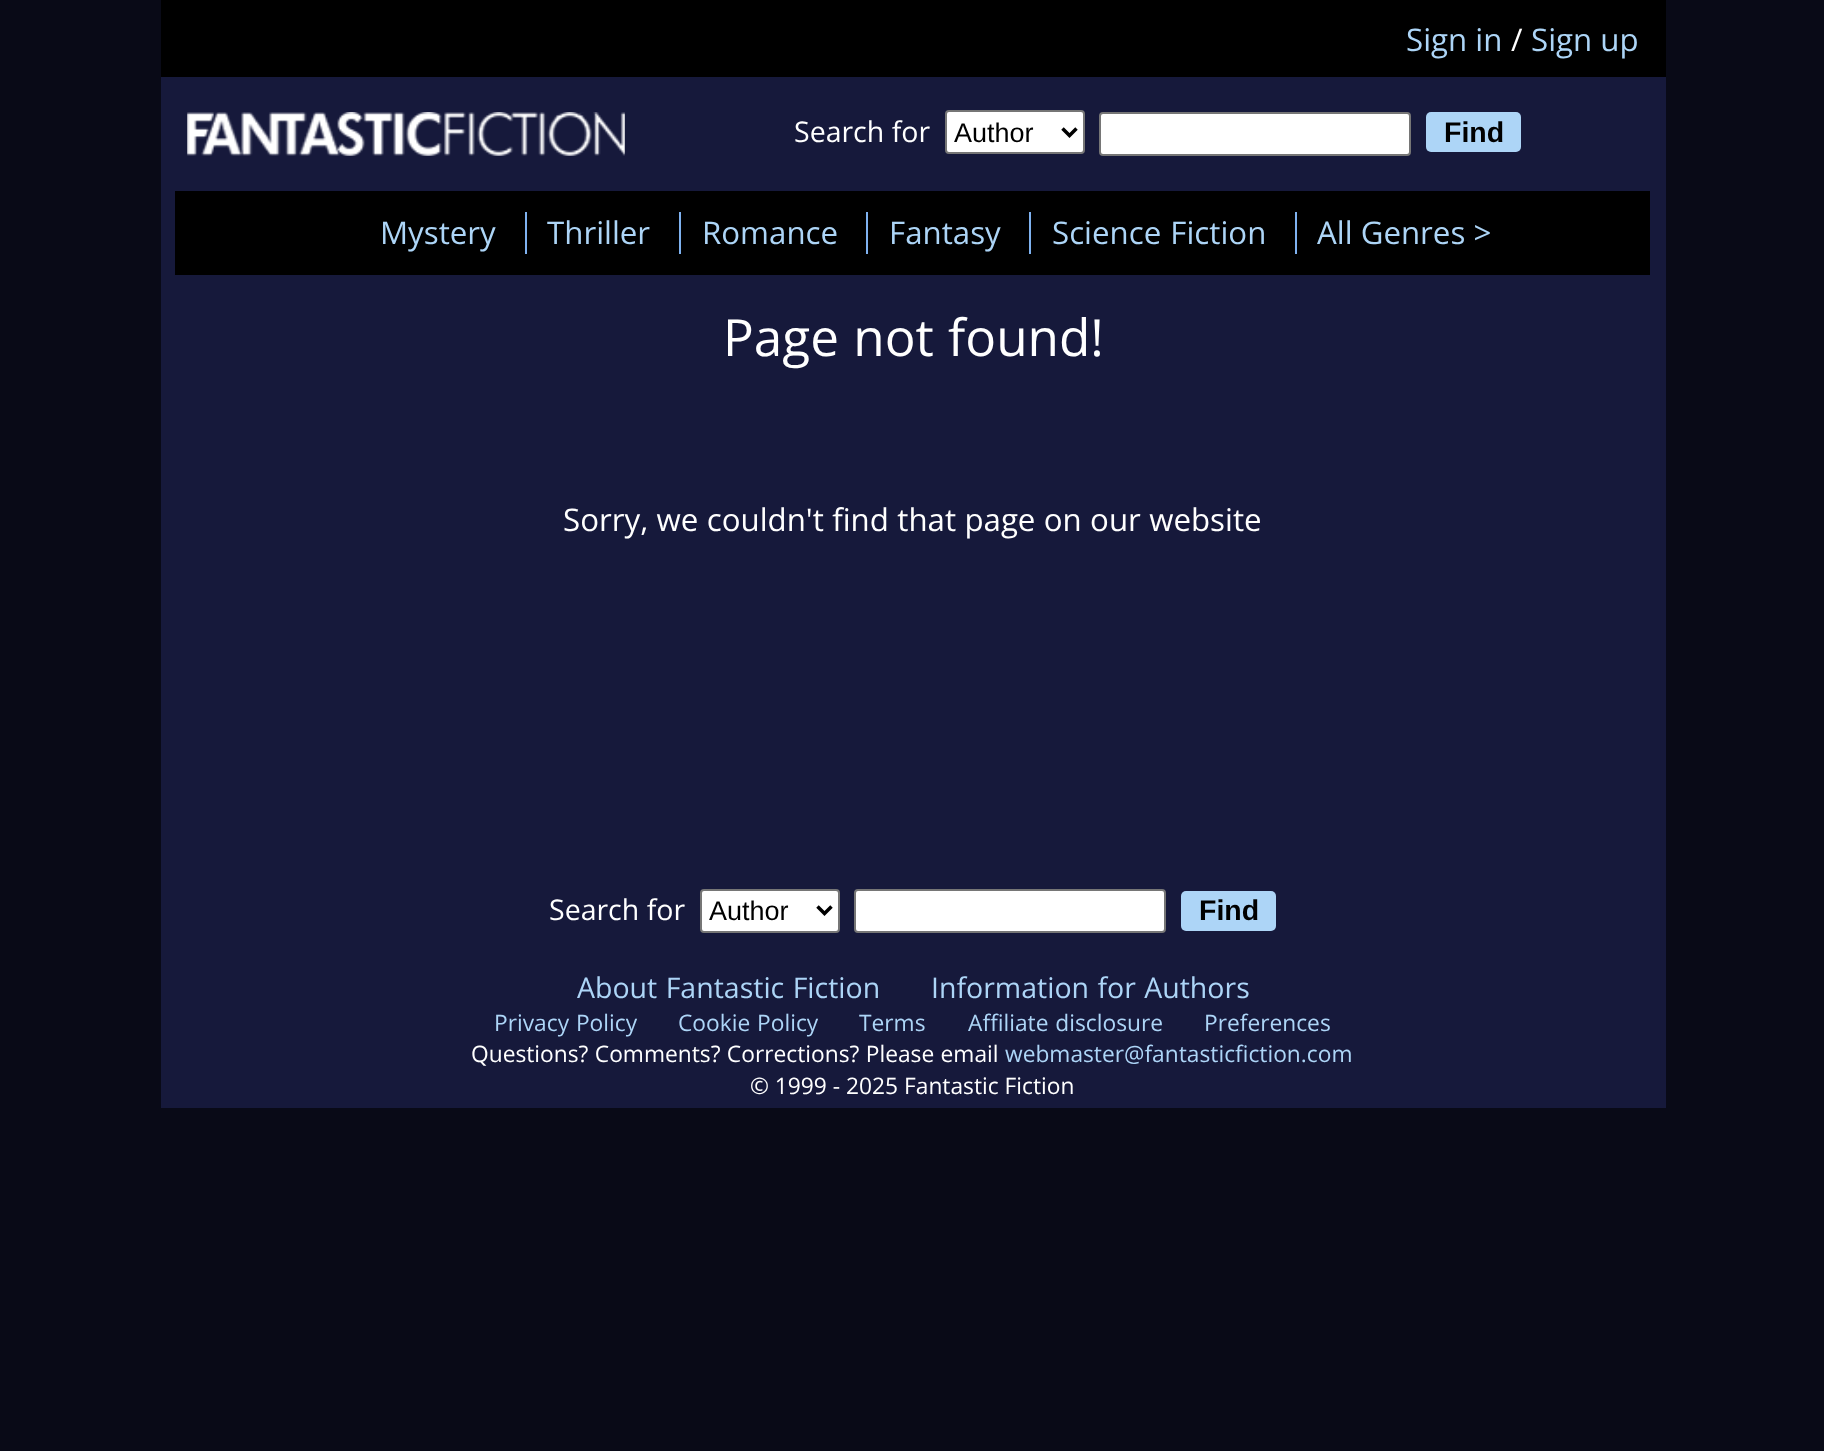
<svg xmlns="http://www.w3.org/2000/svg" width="1824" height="1451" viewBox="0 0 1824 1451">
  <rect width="100%" height="100%" fill="#090a17"/>
  <path d="M161 0h1505v77H161z" fill="#000"/>
  <path d="M161 77h1505v1031H161z" fill="#16193b"/>
  <image x="187" y="112" width="438" height="44" href="img/1.png"/>
  <rect x="946" y="111" width="138" height="42" rx="3" fill="#fff" stroke="#767676" stroke-width="2"/>
  <path d="M1062.5 128.5L1069.5 135.5L1076.5 128.5" fill="none" stroke="#000" stroke-width="3.5"/>
  <rect x="1100" y="113" width="310" height="42" rx="3" fill="#fff" stroke="#767676" stroke-width="2"/>
  <rect x="1426" y="112" width="95" height="40" rx="5" fill="#add5f7"/>
  <path d="M175 191h1475v84H175z" fill="#000"/>
  <path d="M525 212h2v42H525z" fill="#7fb2f0"/>
  <path d="M679 212h2v42H679z" fill="#7fb2f0"/>
  <path d="M866 212h2v42H866z" fill="#7fb2f0"/>
  <path d="M1029 212h2v42H1029z" fill="#7fb2f0"/>
  <path d="M1295 212h2v42H1295z" fill="#7fb2f0"/>
  <rect x="701" y="890" width="138" height="42" rx="3" fill="#fff" stroke="#767676" stroke-width="2"/>
  <path d="M817.5 906.5L824.5 913.5L831.5 906.5" fill="none" stroke="#000" stroke-width="3.5"/>
  <rect x="855" y="890" width="310" height="42" rx="3" fill="#fff" stroke="#767676" stroke-width="2"/>
  <rect x="1181" y="891" width="95" height="40" rx="5" fill="#add5f7"/>
  <text x="1406" y="51" font-family="Open Sans" font-size="31.25" fill="#add5f7">Sign in</text>
  <text x="1511" y="51" font-family="Open Sans" font-size="31.25" fill="#fff">/</text>
  <text x="1531" y="51" font-family="Open Sans" font-size="31.25" fill="#add5f7">Sign up</text>
  <text x="794" y="142" font-family="Open Sans" font-size="28.5" fill="#fff">Search for</text>
  <text x="954" y="142" font-family="Liberation Sans" font-size="27" fill="#000">Author</text>
  <text x="1444" y="142" font-family="Liberation Sans" font-size="28.5" font-weight="bold" fill="#000">Find</text>
  <g font-family="Open Sans" font-size="31.25" fill="#add5f7">
    <text x="380" y="244">Mystery</text>
    <text x="547" y="244">Thriller</text>
    <text x="702" y="244">Romance</text>
    <text x="889" y="244">Fantasy</text>
    <text x="1052" y="244" word-spacing="1">Science Fiction</text>
    <text x="1317" y="244">All Genres &gt;</text>
  </g>
  <text x="723" y="356" word-spacing="1" font-family="Open Sans" font-size="51.25" fill="#fff">Page not found!</text>
  <text x="563" y="531" word-spacing="0.25" font-family="Open Sans" font-size="31.25" fill="#fff">Sorry, we couldn't find that page on our website</text>
  <text x="549" y="920" font-family="Open Sans" font-size="28.5" fill="#fff">Search for</text>
  <text x="709" y="920" font-family="Liberation Sans" font-size="27" fill="#000">Author</text>
  <text x="1199" y="920" font-family="Liberation Sans" font-size="28.5" font-weight="bold" fill="#000">Find</text>
  <g font-family="Open Sans" font-size="28.5" fill="#add5f7">
    <text x="577" y="998" word-spacing="1">About Fantastic Fiction</text>
    <text x="931" y="998" word-spacing="1">Information for Authors</text>
  </g>
  <g font-family="Open Sans" font-size="22.75" fill="#add5f7">
    <text x="494" y="1031" word-spacing="1">Privacy Policy</text>
    <text x="678" y="1031" word-spacing="1">Cookie Policy</text>
    <text x="859" y="1031">Terms</text>
    <text x="968" y="1031" word-spacing="1">Affiliate disclosure</text>
    <text x="1204" y="1031">Preferences</text>
  </g>
  <text x="471" y="1062" word-spacing="0.5" font-family="Open Sans" font-size="22.75" fill="#fff">Questions? Comments? Corrections? Please email</text>
  <text x="1005" y="1062" font-family="Open Sans" font-size="22.75" fill="#add5f7">webmaster@fantasticfiction.com</text>
  <g font-family="Open Sans" font-size="22.75" fill="#fff">
    <text x="750" y="1094">© 1999 - 2025</text>
    <text x="904" y="1094">Fantastic Fiction</text>
  </g>
</svg>
